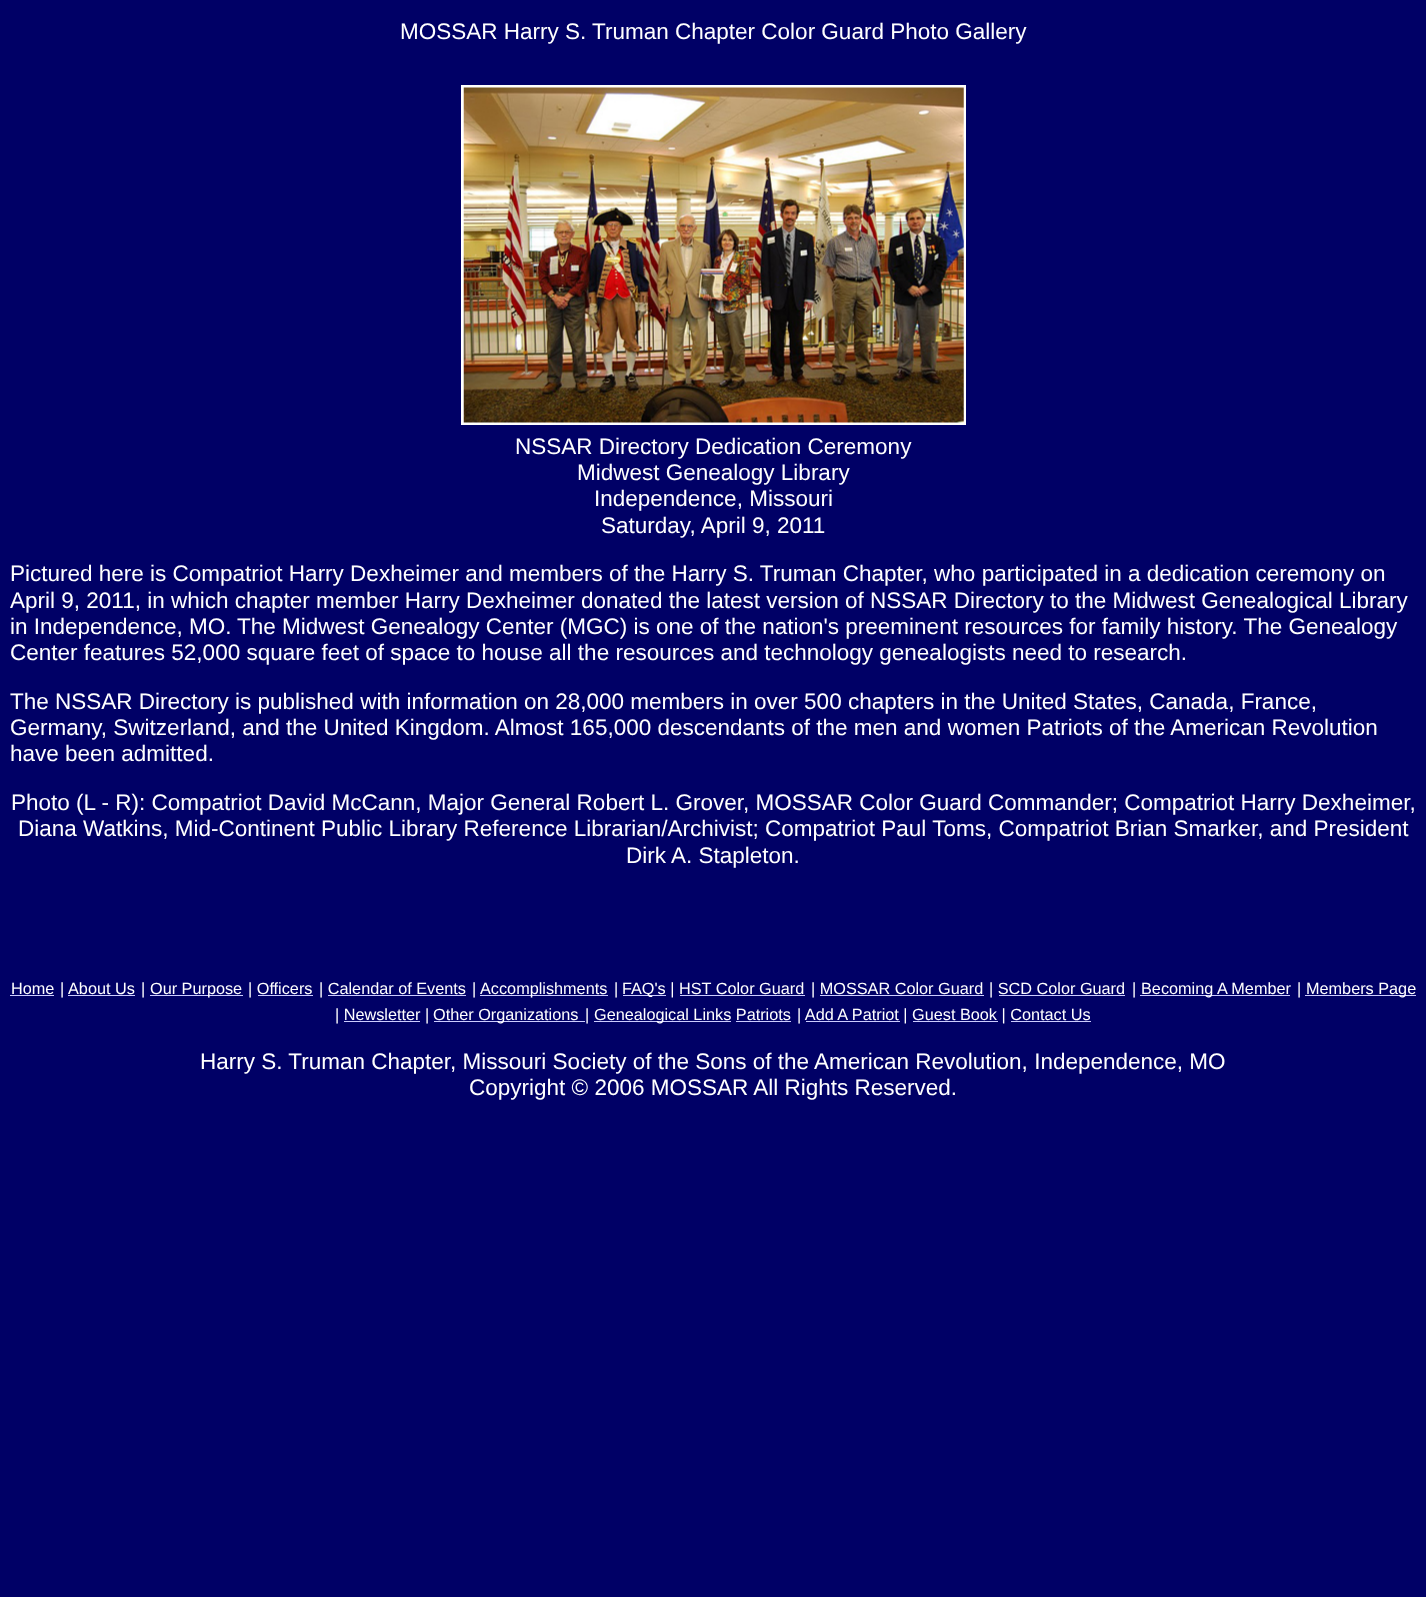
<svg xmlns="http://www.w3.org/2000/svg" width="1426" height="1597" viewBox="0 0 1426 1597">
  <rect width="100%" height="100%" fill="#006"/>
  <path d="M462.5 86.5h502v337H462.5z" fill="none" stroke="#fff" stroke-width="3"/>
  <image x="463" y="87" width="501" height="336" href="img/1.png"/>
  <path d="M10 995h44v1H10z" fill="#ccf"/>
  <path d="M68 995h67v1H68z" fill="#ccf"/>
  <path d="M150 995h93v1H150z" fill="#ccf"/>
  <path d="M480 995h128v1H480z" fill="#ccf"/>
  <path d="M623 995h43v1H623z" fill="#ccf"/>
  <path d="M1140 995h150v1H1140z" fill="#ccf"/>
  <path d="M1305 995h111v1H1305z" fill="#ccf"/>
  <path d="M434 1021h151v1H434z" fill="#ccf"/>
  <path d="M594 1021h137v1H594z" fill="#ccf"/>
  <g font-family="Liberation Sans" font-size="22.5" fill="#fff">
    <text x="400" y="39">MOSSAR Harry S. Truman Chapter Color Guard Photo Gallery</text>
    <text x="515" y="454">NSSAR Directory Dedication Ceremony</text>
    <text x="577" y="480">Midwest Genealogy Library</text>
    <text x="594" y="506">Independence, Missouri</text>
    <text x="601" y="533">Saturday, April 9, 2011</text>
    <text x="10" y="581">Pictured here is Compatriot Harry Dexheimer and members of the Harry S. Truman Chapter, who participated in a dedication ceremony on</text>
    <text x="10" y="608">April 9, 2011, in which chapter member Harry Dexheimer donated the latest version of NSSAR Directory to the Midwest Genealogical Library</text>
    <text x="10" y="634">in Independence, MO.</text>
    <text x="237" y="634">The Midwest Genealogy Center (MGC) is one of the nation's preeminent resources for family history. The Genealogy</text>
    <text x="10" y="660">Center features 52,000 square feet of space to house all the resources and technology genealogists need to research.</text>
    <text x="10" y="709">The NSSAR Directory is published with information on 28,000 members in over 500 chapters in the United States, Canada, France,</text>
    <text x="10" y="735">Germany, Switzerland, and the United Kingdom. Almost 165,000 descendants of the men and women Patriots of the American Revolution</text>
    <text x="10" y="761">have been admitted.</text>
    <text x="11" y="810">Photo (L - R): Compatriot David McCann, Major General Robert L. Grover, MOSSAR Color Guard Commander; Compatriot Harry Dexheimer,</text>
    <text x="18" y="836">Diana Watkins, Mid-Continent Public Library Reference Librarian/Archivist; Compatriot Paul Toms, Compatriot Brian Smarker, and President</text>
    <text x="626" y="863">Dirk A. Stapleton.</text>
  </g>
  <g font-family="Liberation Sans" font-size="16.25" fill="#fff">
    <text x="11" y="994">Home</text>
    <text x="60" y="994">|</text>
    <text x="68" y="994">About Us</text>
    <text x="141" y="994">|</text>
    <text x="150" y="994">Our Purpose</text>
    <text x="248" y="994">| Officers</text>
  </g>
  <path d="M258 995h55v1H258z" fill="#ccf"/>
  <text x="319" y="994" font-family="Liberation Sans" font-size="16.25" fill="#fff">| Calendar of Events</text>
  <path d="M328 995h138v1H328z" fill="#ccf"/>
  <g font-family="Liberation Sans" font-size="16.25" fill="#fff">
    <text x="472" y="994">|</text>
    <text x="480" y="994">Accomplishments</text>
    <text x="614" y="994">|</text>
    <text x="622" y="994">FAQ's | HST Color Guard</text>
  </g>
  <path d="M680 995h125v1H680z" fill="#ccf"/>
  <text x="811" y="994" font-family="Liberation Sans" font-size="16.25" fill="#fff">| MOSSAR Color Guard</text>
  <path d="M820 995h164v1H820z" fill="#ccf"/>
  <text x="989" y="994" font-family="Liberation Sans" font-size="16.25" fill="#fff">| SCD Color Guard</text>
  <path d="M999 995h126v1H999z" fill="#ccf"/>
  <g font-family="Liberation Sans" font-size="16.25" fill="#fff">
    <text x="1132" y="994">|</text>
    <text x="1141" y="994">Becoming A Member</text>
    <text x="1297" y="994">|</text>
    <text x="1306" y="994">Members Page</text>
    <text x="335" y="1020">| Newsletter |</text>
  </g>
  <path d="M344 1021h76v1H344z" fill="#ccf"/>
  <g font-family="Liberation Sans" font-size="16.25" fill="#fff">
    <text x="433" y="1020">Other Organizations</text>
    <text x="585" y="1020">|</text>
    <text x="594" y="1020">Genealogical Links Patriots</text>
  </g>
  <path d="M736 1021h55v1H736z" fill="#ccf"/>
  <text x="797" y="1020" font-family="Liberation Sans" font-size="16.25" fill="#fff">| Add A Patriot | Guest Book | Contact Us</text>
  <path d="M806 1021h94v1H806z" fill="#ccf"/>
  <path d="M913 1021h85v1H913z" fill="#ccf"/>
  <path d="M1011 1021h80v1H1011z" fill="#ccf"/>
  <g font-family="Liberation Sans" font-size="22.5" fill="#fff">
    <text x="200" y="1069">Harry S. Truman Chapter, Missouri Society of the Sons of the American Revolution, Independence, MO</text>
    <text x="469" y="1095">Copyright © 2006 MOSSAR All Rights Reserved.</text>
  </g>
</svg>
